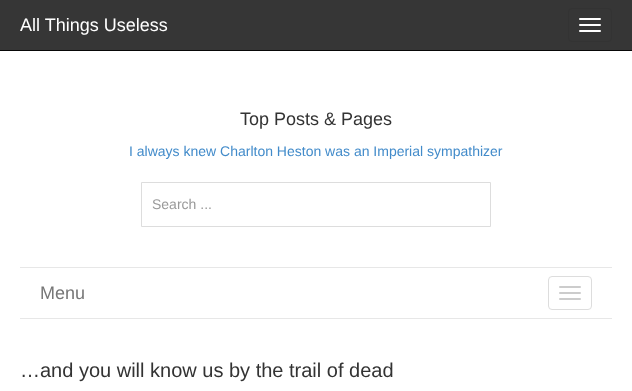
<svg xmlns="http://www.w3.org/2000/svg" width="632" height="391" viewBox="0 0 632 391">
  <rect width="100%" height="100%" fill="#fff"/>
  <path d="M0 0h632v50H0z" fill="#363636"/>
  <path d="M0 50h632v1H0z" fill="#080808"/>
  <rect x="568.5" y="8.5" width="43" height="33" rx="3.5" fill="none" stroke="#333"/>
  <rect x="579" y="18" width="22" height="2" rx="1" fill="#fff"/>
  <rect x="579" y="24" width="22" height="2" rx="1" fill="#fff"/>
  <rect x="579" y="30" width="22" height="2" rx="1" fill="#fff"/>
  <path d="M141.5 182.5h349v44H141.5z" fill="none" stroke="#ddd"/>
  <path d="M20 267h592v1H20z" fill="#e7e7e7"/>
  <path d="M20 318h592v1H20z" fill="#e7e7e7"/>
  <rect x="548.5" y="276.5" width="43" height="33" rx="3.5" fill="none" stroke="#ddd"/>
  <rect x="559" y="286" width="22" height="2" rx="1" fill="#ccc"/>
  <rect x="559" y="292" width="22" height="2" rx="1" fill="#ccc"/>
  <rect x="559" y="298" width="22" height="2" rx="1" fill="#ccc"/>
  <text x="20" y="31" font-family="Liberation Sans" font-size="18" fill="#fff">All Things Useless</text>
  <text x="240" y="125" font-family="Liberation Sans" font-size="18" fill="#333">Top Posts &amp; Pages</text>
  <text x="129" y="156" font-family="Liberation Sans" font-size="14" fill="#428bca">I always knew Charlton Heston was an Imperial sympathizer</text>
  <text x="152" y="209" font-family="Liberation Sans" font-size="14" fill="#999">Search ...</text>
  <text x="40" y="299" font-family="Liberation Sans" font-size="18" fill="#777">Menu</text>
  <text x="20" y="377" font-family="Liberation Sans" font-size="20" fill="#333">…and you will know us by the trail of dead</text>
</svg>
